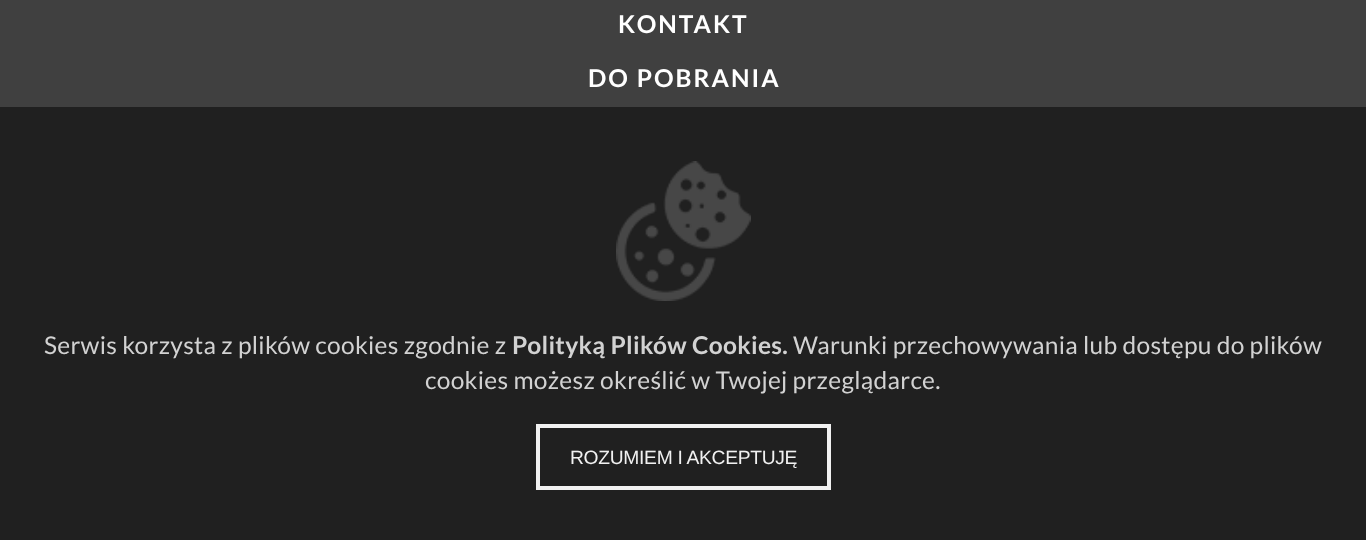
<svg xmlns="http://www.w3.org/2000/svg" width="1366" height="540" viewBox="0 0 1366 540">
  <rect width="100%" height="100%" fill="#404040"/>
  <path d="M0 107h1366v433H0z" fill="#202020"/>
  <image x="616" y="161" width="135" height="140" href="img/1.png"/>
  <path d="M538 426h291v62H538z" fill="none" stroke="#f1f1f1" stroke-width="4"/>
  <g font-family="Lato" font-size="24.5" font-weight="bold" letter-spacing="2" fill="#fff">
    <text x="618" y="33">KONTAKT</text>
    <text x="588" y="87">DO POBRANIA</text>
  </g>
  <text x="44" y="354" font-family="Lato" font-size="24.5" letter-spacing="0.3" fill="#d2d2d2">Serwis korzysta z plików cookies zgodnie z</text>
  <text x="512" y="354" font-family="Lato" font-size="24.5" font-weight="bold" letter-spacing="0.3" fill="#d2d2d2">Polityką Plików Cookies.</text>
  <g font-family="Lato" font-size="24.5" letter-spacing="0.3" fill="#d2d2d2">
    <text x="793" y="354">Warunki przechowywania lub dostępu do plików</text>
    <text x="425" y="389">cookies możesz określić w Twojej przeglądarce.</text>
  </g>
  <text x="570" y="464" font-family="Liberation Sans" font-size="19.25" letter-spacing="-0.3" fill="#f1f1f1">ROZUMIEM I AKCEPTUJĘ</text>
</svg>
